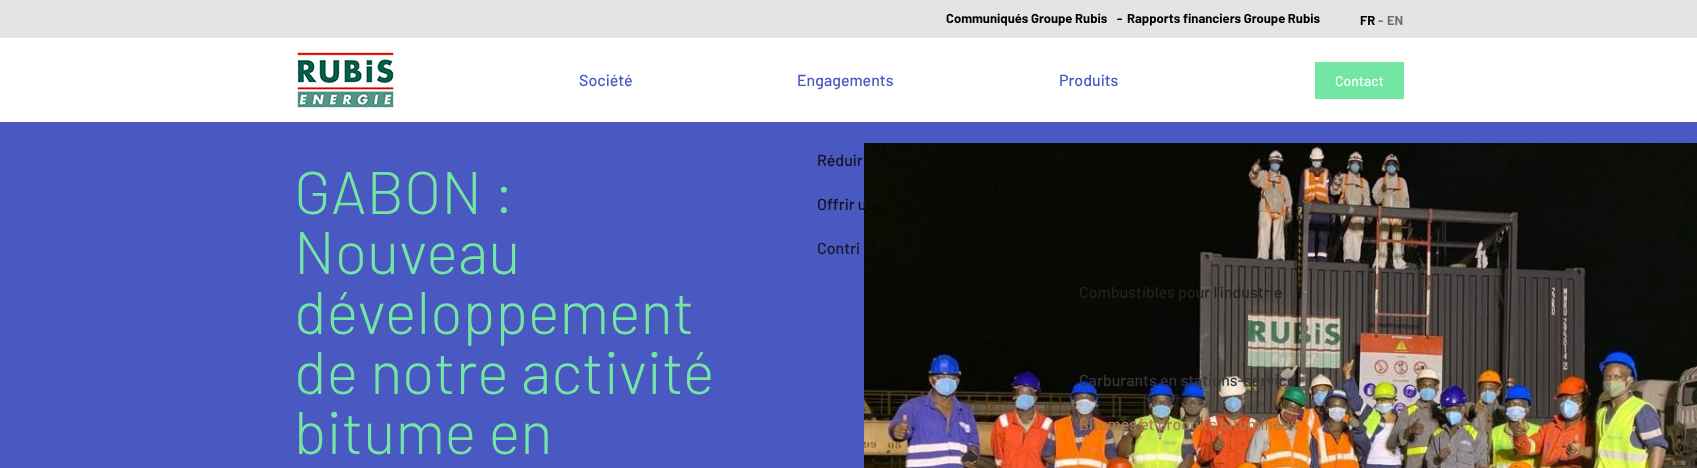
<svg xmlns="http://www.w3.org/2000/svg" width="1697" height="468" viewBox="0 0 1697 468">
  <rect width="100%" height="100%" fill="#4a58c1"/>
  <image x="864" y="143" width="833" height="325" href="img/1.png"/>
  <path d="M0 0h1697v38H0z" fill="#e4e4e4"/>
  <path d="M0 38h1697v84H0z" fill="#fff"/>
  <image x="294" y="49" width="103" height="61" href="img/2.png"/>
  <path d="M1315 62h89v37H1315z" fill="#73e6a3"/>
  <g font-family="Barlow" font-size="60" font-weight="300" fill="#73e6a3">
    <text x="294" y="214">GABON :</text>
    <text x="294" y="274">Nouveau</text>
    <text x="294" y="334">développement</text>
    <text x="294" y="394">de notre activité</text>
    <text x="294" y="454">bitume en</text>
  </g>
  <g font-family="Barlow" font-size="13" font-weight="bold" fill="#000">
    <text x="946" y="23">Communiqués Groupe Rubis</text>
    <text x="1117" y="23">-</text>
    <text x="1127" y="23">Rapports financiers Groupe Rubis</text>
    <text x="1360" y="25">FR</text>
  </g>
  <g font-family="Barlow" font-size="13" font-weight="bold" fill="#727272">
    <text x="1378" y="25">-</text>
    <text x="1387" y="25">EN</text>
  </g>
  <g font-family="Barlow" font-size="16" font-weight="500" fill="#4a58c1">
    <text x="579" y="86">Société</text>
    <text x="797" y="86">Engagements</text>
  </g>
  <g font-family="Barlow" font-size="16" font-weight="500" fill="#11141d">
    <text x="817" y="166">Réduir</text>
    <text x="817" y="210">Offrir u</text>
  </g>
  <text x="817" y="254" font-family="Barlow" font-size="16" font-weight="500" fill="#151826">Contri</text>
  <text x="1059" y="86" font-family="Barlow" font-size="16" font-weight="500" fill="#4a58c1">Produits</text>
  <text x="1079" y="298" font-family="Barlow" font-size="16" font-weight="500" fill="#23221d">Combustibles pour l’industrie</text>
  <text x="1079" y="386" font-family="Barlow" font-size="16" font-weight="500" fill="#36363a">Carburants en stations-service</text>
  <text x="1079" y="430" font-family="Barlow" font-size="16" font-weight="500" fill="#ad7947">Bitumes et produits bitumineux</text>
  <text x="1335" y="86" font-family="Barlow" font-size="14" font-weight="500" fill="#fff">Contact</text>
</svg>
